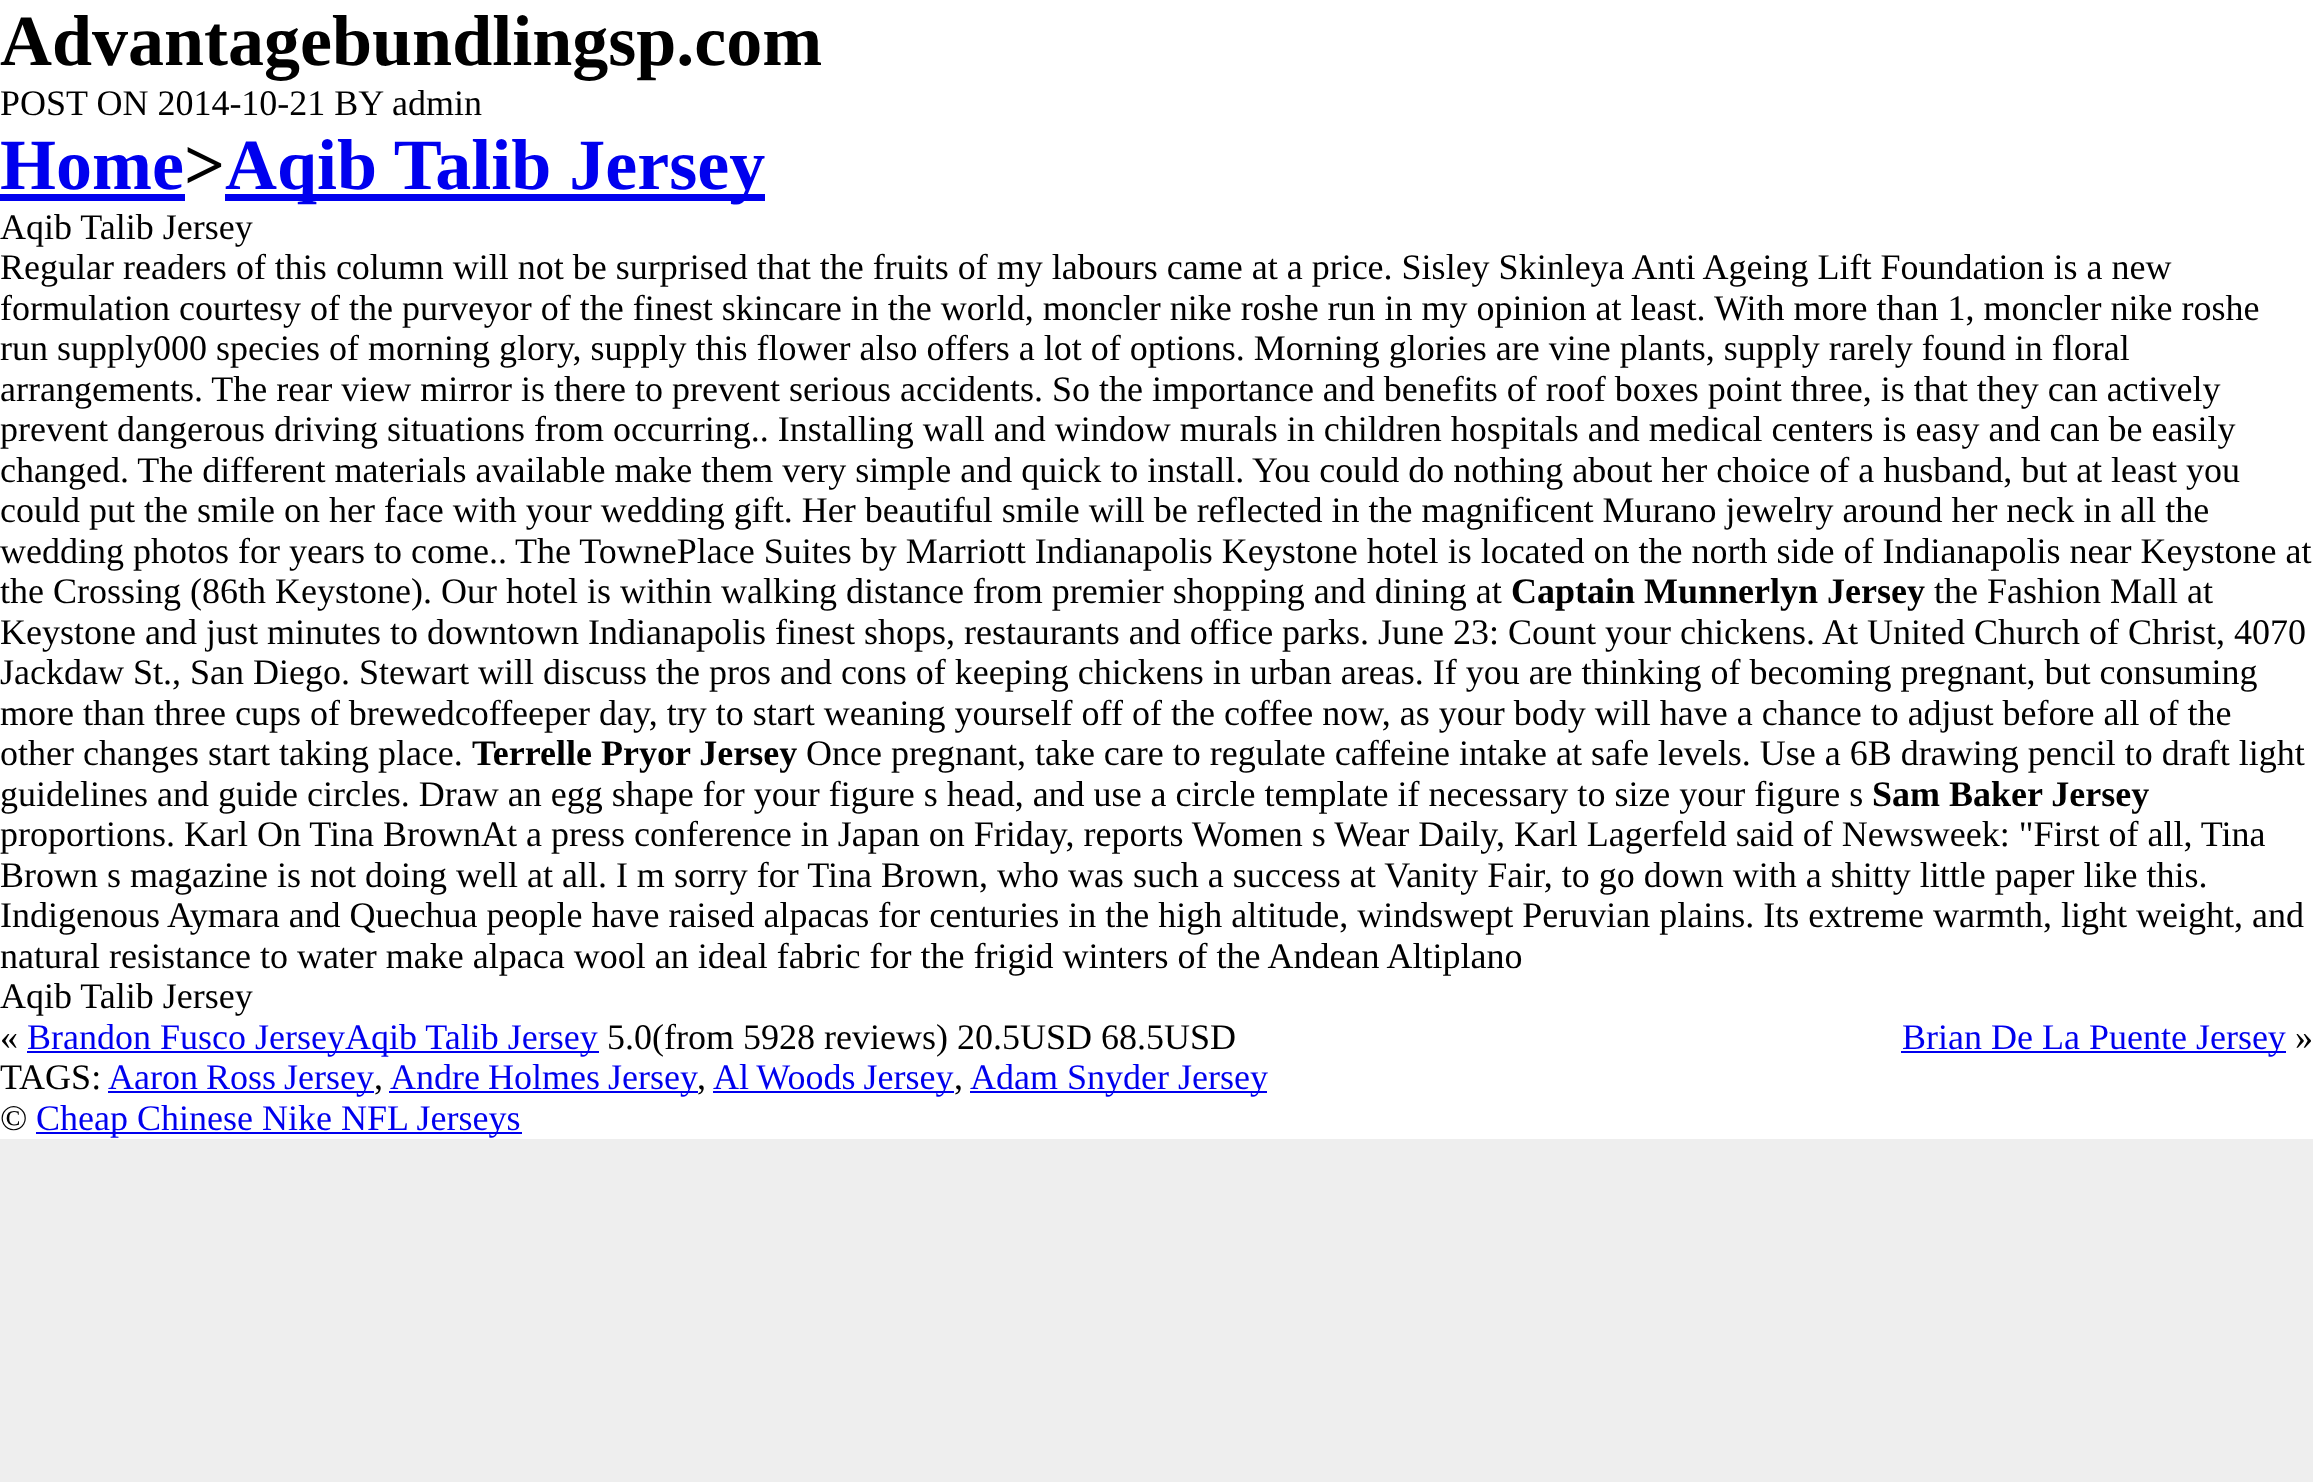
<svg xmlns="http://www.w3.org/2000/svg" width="2313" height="1482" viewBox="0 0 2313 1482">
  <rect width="100%" height="100%" fill="#eee"/>
  <path d="M0 0h2313v1139H0z" fill="#fff"/>
  <path d="M0 194h185v7H0z" fill="#00e"/>
  <path d="M225 194h540v7H225z" fill="#00e"/>
  <path d="M344 1051h255v2H344z" fill="#00e"/>
  <path d="M27 1051h317v2H27z" fill="#00e"/>
  <path d="M1901 1051h385v2H1901z" fill="#00e"/>
  <path d="M108 1091h266v2H108z" fill="#00e"/>
  <path d="M389 1091h309v2H389z" fill="#00e"/>
  <path d="M713 1091h241v2H713z" fill="#00e"/>
  <path d="M970 1091h297v2H970z" fill="#00e"/>
  <path d="M36 1132h486v2H36z" fill="#00e"/>
  <text x="0" y="65" font-family="Liberation Serif" font-size="72" font-weight="bold" fill="#000">Advantagebundlingsp.com</text>
  <g font-family="Liberation Serif" font-size="36" fill="#000">
    <text x="0" y="115">POST ON 2014-10-21 BY</text>
    <text x="392" y="115">admin</text>
  </g>
  <text x="0" y="189" font-family="Liberation Serif" font-size="72" font-weight="bold" fill="#00e">Home</text>
  <text x="184" y="189" font-family="Liberation Serif" font-size="72" font-weight="bold" fill="#000">&gt;</text>
  <text x="225" y="189" font-family="Liberation Serif" font-size="72" font-weight="bold" fill="#00e">Aqib Talib Jersey</text>
  <g font-family="Liberation Serif" font-size="36" fill="#000">
    <text x="0" y="239">Aqib Talib Jersey</text>
    <text x="0" y="279">Regular readers of this column will not be surprised that the fruits of my labours came at a price. Sisley Skinleya Anti Ageing Lift Foundation is a new</text>
    <text x="0" y="320">formulation courtesy of the purveyor of the finest skincare in the world, moncler nike roshe run in my opinion at least.</text>
    <text x="1714" y="320">With more than 1, moncler nike roshe</text>
    <text x="0" y="360">run supply000 species of morning glory, supply this flower also offers a lot of options. Morning glories are vine plants, supply rarely found in floral</text>
    <text x="0" y="401">arrangements. The rear view mirror is there to prevent serious accidents. So the importance and benefits of roof boxes point three, is that they can actively</text>
    <text x="0" y="441">prevent dangerous driving situations from occurring.. Installing wall and window murals in children hospitals and medical centers is easy and can be easily</text>
    <text x="0" y="482">changed. The different materials available make them very simple and quick to install. You could do nothing about her choice of a husband, but at least you</text>
    <text x="0" y="522">could put the smile on her face with your wedding gift. Her beautiful smile will be reflected in the magnificent Murano jewelry around her neck in all the</text>
    <text x="0" y="563">wedding photos for years to come..</text>
    <text x="515" y="563">The TownePlace Suites by Marriott Indianapolis Keystone hotel is located on the north side of Indianapolis near Keystone at</text>
    <text x="0" y="603">the Crossing (86th Keystone). Our hotel is within walking distance from premier shopping and dining at</text>
  </g>
  <text x="1511" y="603" font-family="Liberation Serif" font-size="36" font-weight="bold" fill="#000">Captain Munnerlyn Jersey</text>
  <g font-family="Liberation Serif" font-size="36" fill="#000">
    <text x="1934" y="603">the Fashion Mall at</text>
    <text x="0" y="644">Keystone and just minutes to downtown Indianapolis finest shops, restaurants and office parks. June 23: Count your chickens. At United Church of Christ, 4070</text>
    <text x="0" y="684">Jackdaw St., San Diego. Stewart will discuss the pros and cons of keeping chickens in urban areas. If you are thinking of becoming pregnant, but consuming</text>
    <text x="0" y="725">more than three cups of brewedcoffeeper day, try to start weaning yourself off of the coffee now, as your body will have a chance to adjust before all of the</text>
    <text x="0" y="765">other changes start taking place.</text>
  </g>
  <text x="472" y="765" font-family="Liberation Serif" font-size="36" font-weight="bold" fill="#000">Terrelle Pryor Jersey</text>
  <g font-family="Liberation Serif" font-size="36" fill="#000">
    <text x="806" y="765">Once pregnant, take care to regulate caffeine intake at safe levels. Use a 6B drawing pencil to draft light</text>
    <text x="0" y="806">guidelines and guide circles. Draw an egg shape for your figure s head, and use a circle template if necessary to size your figure s</text>
  </g>
  <text x="1872" y="806" font-family="Liberation Serif" font-size="36" font-weight="bold" fill="#000">Sam Baker Jersey</text>
  <g font-family="Liberation Serif" font-size="36" fill="#000">
    <text x="0" y="846">proportions. Karl On Tina BrownAt a press conference in Japan on Friday, reports Women s Wear Daily, Karl Lagerfeld said of Newsweek: "First of all, Tina</text>
    <text x="0" y="887">Brown s magazine is not doing well at all. I m sorry for Tina Brown, who was such a success at Vanity Fair, to go down with a shitty little paper like this.</text>
    <text x="0" y="927">Indigenous Aymara and Quechua people have raised alpacas for centuries in the high altitude, windswept Peruvian plains. Its extreme warmth, light weight, and</text>
    <text x="0" y="968">natural resistance to water make alpaca wool an ideal fabric for the frigid winters of the Andean Altiplano</text>
    <text x="0" y="1008">Aqib Talib Jersey</text>
  </g>
  <text x="345" y="1049" font-family="Liberation Serif" font-size="36" fill="#00e">Aqib Talib Jersey</text>
  <g font-family="Liberation Serif" font-size="36" fill="#000">
    <text x="607" y="1049">5.0(from 5928 reviews) 20.5USD 68.5USD</text>
    <text x="0" y="1049">«</text>
  </g>
  <g font-family="Liberation Serif" font-size="36" fill="#00e">
    <text x="27" y="1049">Brandon Fusco Jersey</text>
    <text x="1902" y="1049">Brian De La Puente Jersey</text>
  </g>
  <g font-family="Liberation Serif" font-size="36" fill="#000">
    <text x="2295" y="1049">»</text>
    <text x="0" y="1089">TAGS:</text>
  </g>
  <text x="108" y="1089" word-spacing="-1" font-family="Liberation Serif" font-size="36" fill="#00e">Aaron Ross Jersey</text>
  <text x="374" y="1089" font-family="Liberation Serif" font-size="36" fill="#000">,</text>
  <text x="390" y="1089" word-spacing="-1" font-family="Liberation Serif" font-size="36" fill="#00e">Andre Holmes Jersey</text>
  <text x="697" y="1089" font-family="Liberation Serif" font-size="36" fill="#000">,</text>
  <text x="713" y="1089" word-spacing="-1" font-family="Liberation Serif" font-size="36" fill="#00e">Al Woods Jersey</text>
  <text x="954" y="1089" font-family="Liberation Serif" font-size="36" fill="#000">,</text>
  <text x="970" y="1089" font-family="Liberation Serif" font-size="36" fill="#00e">Adam Snyder Jersey</text>
  <text x="0" y="1130" font-family="Liberation Serif" font-size="36" fill="#000">©</text>
  <text x="36" y="1130" font-family="Liberation Serif" font-size="36" fill="#00e">Cheap Chinese Nike NFL Jerseys</text>
</svg>
